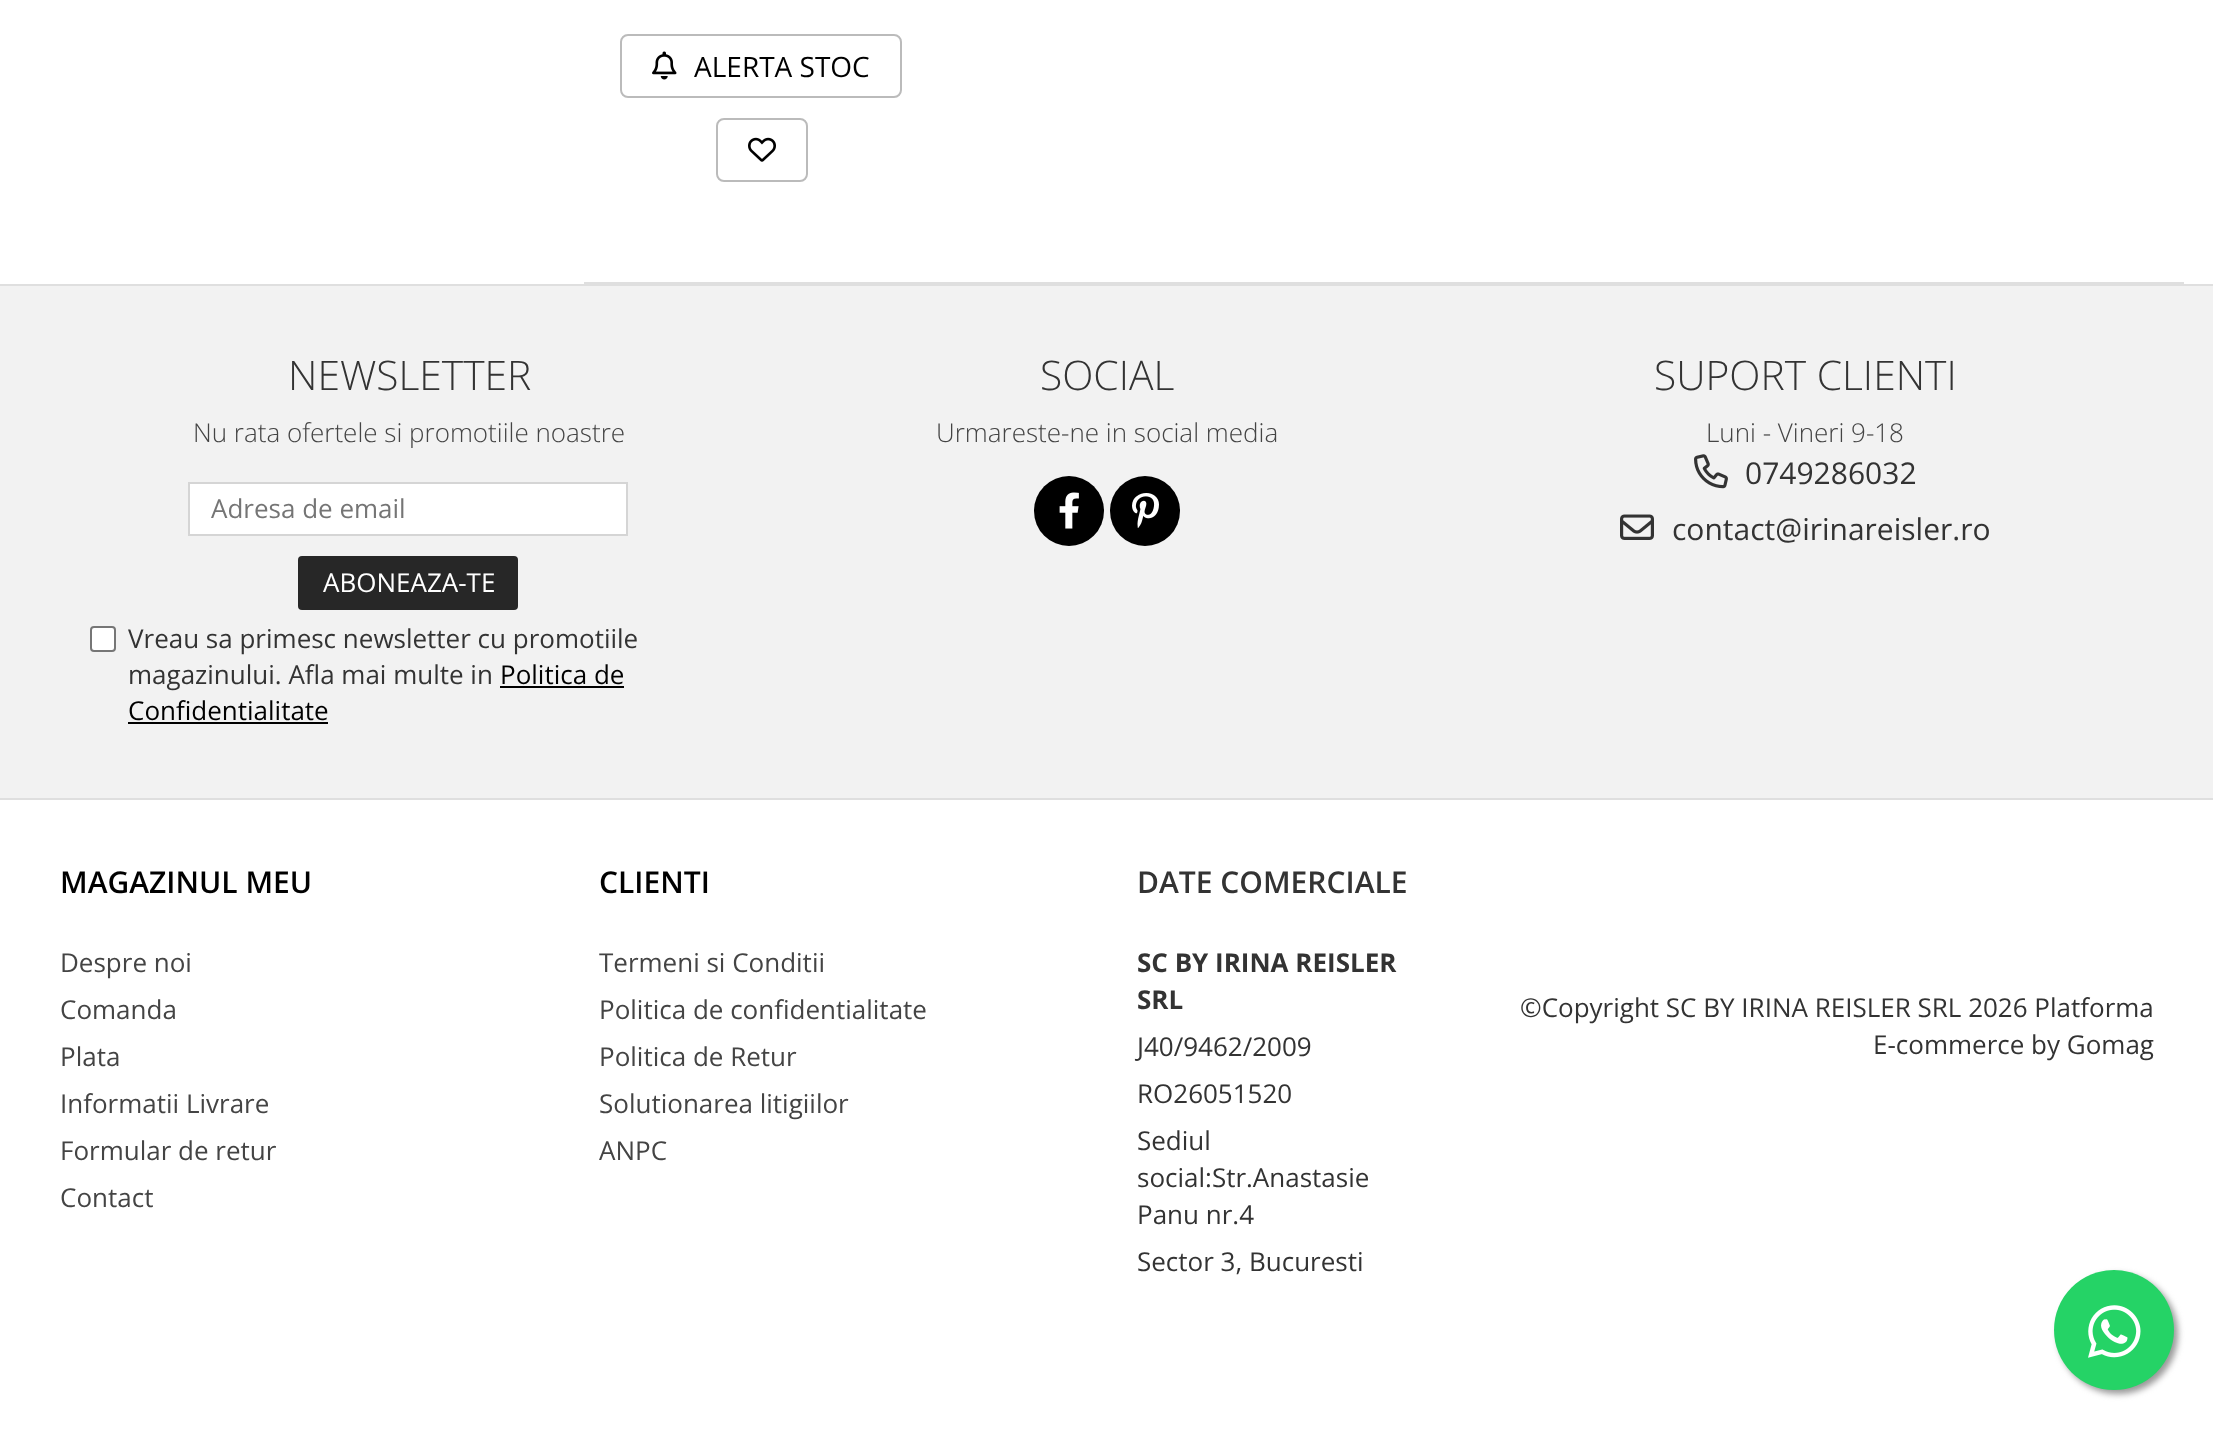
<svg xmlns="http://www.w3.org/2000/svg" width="2213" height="1429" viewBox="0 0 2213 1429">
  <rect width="100%" height="100%" fill="#fff"/>
  <path d="M584 282h1600v2H584z" fill="#dfdfdf"/>
  <rect x="621" y="35" width="280" height="62" rx="7" fill="none" stroke="#bbb" stroke-width="2"/>
  <image x="652" y="51" width="25" height="29" href="img/1.png"/>
  <rect x="717" y="119" width="90" height="62" rx="7" fill="none" stroke="#bbb" stroke-width="2"/>
  <image x="748" y="137" width="28" height="25" href="img/2.png"/>
  <path d="M0 286h2213v512H0z" fill="#f2f2f2"/>
  <path d="M0 284h2213v2H0z" fill="#dfdfdf"/>
  <path d="M0 798h2213v2H0z" fill="#dfdfdf"/>
  <path d="M189 483h438v52H189z" fill="#fff" stroke="#d5d5d5" stroke-width="2"/>
  <rect x="298" y="556" width="220" height="54" rx="4" fill="#272727"/>
  <rect x="91" y="627" width="24" height="24" rx="3" fill="#fff" stroke="#767676" stroke-width="2"/>
  <path d="M500 686h124v2H500z" fill="#000"/>
  <path d="M128 722h200v2H128z" fill="#000"/>
  <circle cx="1069" cy="511" r="35" fill="#000"/>
  <image x="1059" y="492" width="20" height="37" href="img/3.png"/>
  <circle cx="1145" cy="511" r="35" fill="#000"/>
  <image x="1132" y="493" width="27" height="35" href="img/4.png"/>
  <image x="1694" y="454" width="34" height="35" href="img/5.png"/>
  <image x="1620" y="514" width="34" height="26" href="img/6.png"/>
  <rect x="2058" y="1274" width="120" height="120" rx="60" fill="#999" filter="blur(3px)"/>
  <circle cx="2114" cy="1330" r="60" fill="#25d366"/>
  <image x="2088" y="1305" width="53" height="53" href="img/7.png"/>
  <text x="694" y="77" font-family="Open Sans" font-size="28" fill="#000">ALERTA STOC</text>
  <text x="288" y="390" font-family="Open Sans" font-size="40.75" font-weight="300" fill="#333">NEWSLETTER</text>
  <text x="193" y="442" font-family="Open Sans" font-size="26" font-weight="300" fill="#444">Nu rata ofertele si promotiile noastre</text>
  <text x="211" y="518" font-family="Open Sans" font-size="26" fill="#757575">Adresa de email</text>
  <text x="323" y="592" font-family="Open Sans" font-size="26" fill="#fff">ABONEAZA-TE</text>
  <g font-family="Open Sans" font-size="26" fill="#333">
    <text x="128" y="648">Vreau sa primesc newsletter cu promotiile</text>
    <text x="128" y="684">magazinului. Afla mai multe in</text>
  </g>
  <g font-family="Open Sans" font-size="26" fill="#000">
    <text x="500" y="684">Politica de</text>
    <text x="128" y="720">Confidentialitate</text>
  </g>
  <text x="1040" y="390" font-family="Open Sans" font-size="40.75" font-weight="300" fill="#333">SOCIAL</text>
  <text x="936" y="442" font-family="Open Sans" font-size="26" font-weight="300" fill="#444">Urmareste-ne in social media</text>
  <text x="1654" y="390" font-family="Open Sans" font-size="40.75" font-weight="300" fill="#333">SUPORT CLIENTI</text>
  <text x="1706" y="442" font-family="Open Sans" font-size="26" font-weight="300" fill="#444">Luni - Vineri 9-18</text>
  <g font-family="Open Sans" font-size="30" fill="#333">
    <text x="1745" y="484">0749286032</text>
    <text x="1672" y="540">contact@irinareisler.ro</text>
  </g>
  <text x="60" y="893" font-family="Open Sans" font-size="30" font-weight="600" fill="#000">MAGAZINUL MEU</text>
  <g font-family="Open Sans" font-size="26" fill="#444">
    <text x="60" y="972">Despre noi</text>
    <text x="60" y="1019">Comanda</text>
    <text x="60" y="1066">Plata</text>
    <text x="60" y="1113">Informatii Livrare</text>
    <text x="60" y="1160">Formular de retur</text>
    <text x="60" y="1207">Contact</text>
  </g>
  <text x="599" y="893" font-family="Open Sans" font-size="30" font-weight="600" fill="#000">CLIENTI</text>
  <g font-family="Open Sans" font-size="26" fill="#444">
    <text x="599" y="972">Termeni si Conditii</text>
    <text x="599" y="1019">Politica de confidentialitate</text>
    <text x="599" y="1066">Politica de Retur</text>
    <text x="599" y="1113">Solutionarea litigiilor</text>
    <text x="599" y="1160">ANPC</text>
  </g>
  <text x="1137" y="893" font-family="Open Sans" font-size="30" font-weight="600" fill="#333">DATE COMERCIALE</text>
  <g font-family="Open Sans" font-size="26" font-weight="bold" fill="#333">
    <text x="1137" y="972">SC BY IRINA REISLER</text>
    <text x="1137" y="1009">SRL</text>
  </g>
  <g font-family="Open Sans" font-size="26" fill="#333">
    <text x="1137" y="1056">J40/9462/2009</text>
    <text x="1137" y="1103">RO26051520</text>
    <text x="1137" y="1150">Sediul</text>
    <text x="1137" y="1187">social:Str.Anastasie</text>
    <text x="1137" y="1224">Panu nr.4</text>
    <text x="1137" y="1271">Sector 3, Bucuresti</text>
    <text x="1520" y="1017">©Copyright SC BY IRINA REISLER SRL 2026 Platforma</text>
    <text x="1873" y="1054">E-commerce by Gomag</text>
  </g>
</svg>
